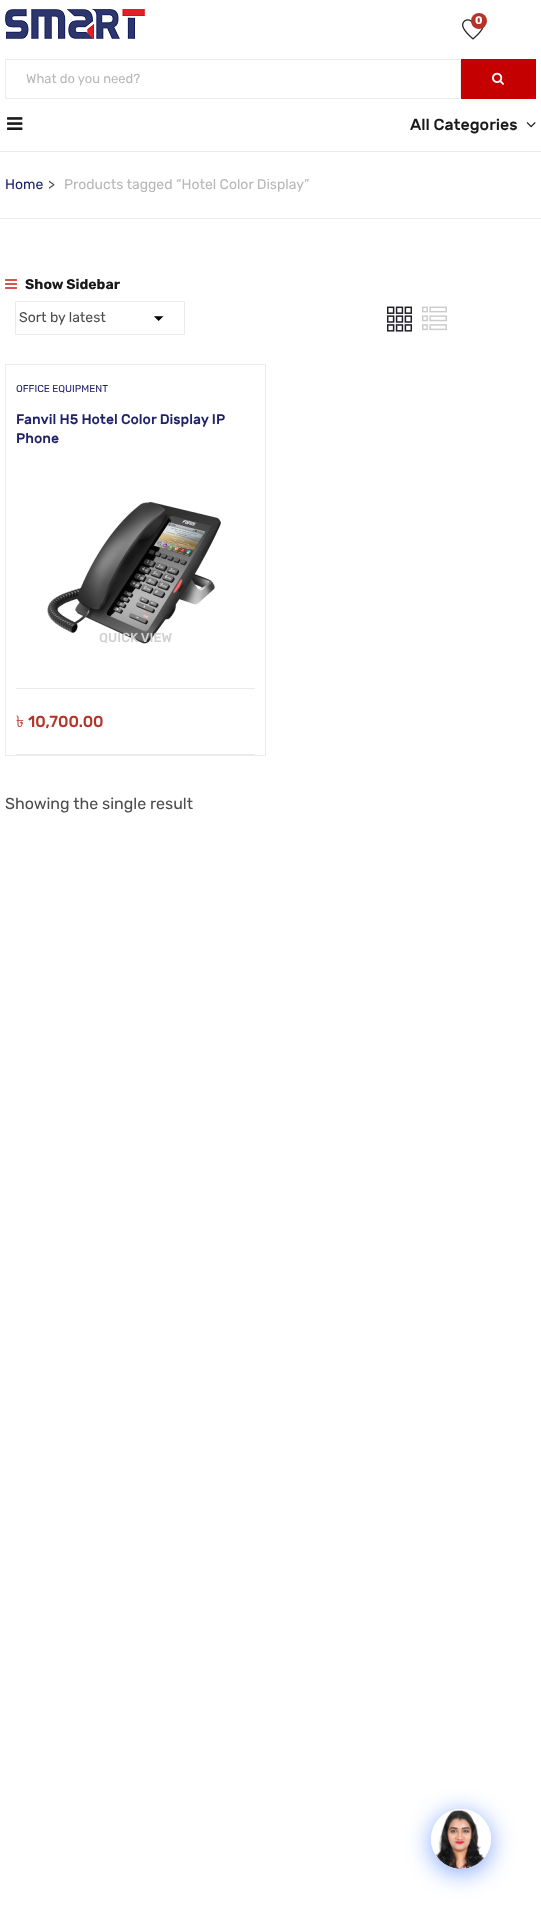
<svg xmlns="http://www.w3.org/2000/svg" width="541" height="1919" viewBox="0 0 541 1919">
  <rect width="100%" height="100%" fill="#fff"/>
  <image x="5" y="9" width="140" height="30" href="img/1.png"/>
  <image x="462" y="19" width="22" height="21" href="img/2.png"/>
  <circle cx="479" cy="21" r="8" fill="#b7332a"/>
  <path d="M5.5 59.5h455v39H5.5z" fill="none" stroke="#ebebeb"/>
  <path d="M461 59h75v40H461z" fill="#c50000"/>
  <image x="492" y="72" width="12" height="13" href="img/3.png"/>
  <path d="M0 151h541v1H0z" fill="#ebebeb"/>
  <image x="7" y="117" width="16" height="13" href="img/4.png"/>
  <image x="526" y="122" width="10" height="6" href="img/5.png"/>
  <path d="M0 218h541v1H0z" fill="#ebebeb"/>
  <image x="5" y="279" width="12" height="10" href="img/6.png"/>
  <image x="154" y="316" width="10" height="5" href="img/7.png"/>
  <path d="M15.5 301.5h169v33H15.5z" fill="none" stroke="#ebebeb"/>
  <image x="387" y="306" width="25" height="26" href="img/8.png"/>
  <image x="422" y="306" width="25" height="25" href="img/9.png"/>
  <path d="M5.5 364.5h260v391H5.5z" fill="none" stroke="#ebebeb"/>
  <path d="M16 688h239v1H16z" fill="#ebebeb"/>
  <image x="47" y="502" width="174" height="142" href="img/10.png"/>
  <path d="M16 754h239v1H16z" fill="#ebebeb"/>
  <rect x="431" y="1813" width="60" height="60" rx="30" fill="#004dff80" filter="blur(12px)"/>
  <circle cx="461" cy="1839" r="30" fill="#fff"/>
  <image x="431" y="1809" width="60" height="60" href="img/11.png"/>
  <text x="475" y="24" font-family="Rubik" font-size="11" font-weight="bold" fill="#fff">0</text>
  <text x="26" y="83" font-family="Rubik" font-size="13" fill="#b7b7b7">What do you need?</text>
  <text x="410" y="130" font-family="Rubik" font-size="16" font-weight="500" fill="#191919">All Categories</text>
  <text x="5" y="189" font-family="Rubik" font-size="14" fill="#20206b">Home</text>
  <text x="48" y="189" font-family="Rubik" font-size="14" fill="#4c4c4c">&gt;</text>
  <text x="64" y="189" font-family="Rubik" font-size="14" fill="#b7b7b7">Products tagged “Hotel Color Display”</text>
  <text x="25" y="289" font-family="Rubik" font-size="14" font-weight="bold" fill="#191919">Show Sidebar</text>
  <text x="19" y="322" font-family="Rubik" font-size="14" fill="#4c4c4c">Sort by latest</text>
  <text x="16" y="392" font-family="Rubik" font-size="10" fill="#20206b">OFFICE EQUIPMENT</text>
  <g font-family="Rubik" font-size="14" font-weight="500" fill="#20206b">
    <text x="16" y="424">Fanvil H5 Hotel Color Display IP</text>
    <text x="16" y="443">Phone</text>
  </g>
  <text x="99" y="642" font-family="'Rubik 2'" font-size="13" font-weight="500" fill="#d1d1d1">QUICK VIEW</text>
  <text x="16" y="727" font-family="Lohit Bengali" font-size="16" fill="#b7332a">৳</text>
  <text x="28" y="727" font-family="Rubik" font-size="16" font-weight="500" fill="#b7332a">10,700.00</text>
  <text x="5" y="809" font-family="Rubik" font-size="16" fill="#4c4c4c">Showing the single result</text>
</svg>
